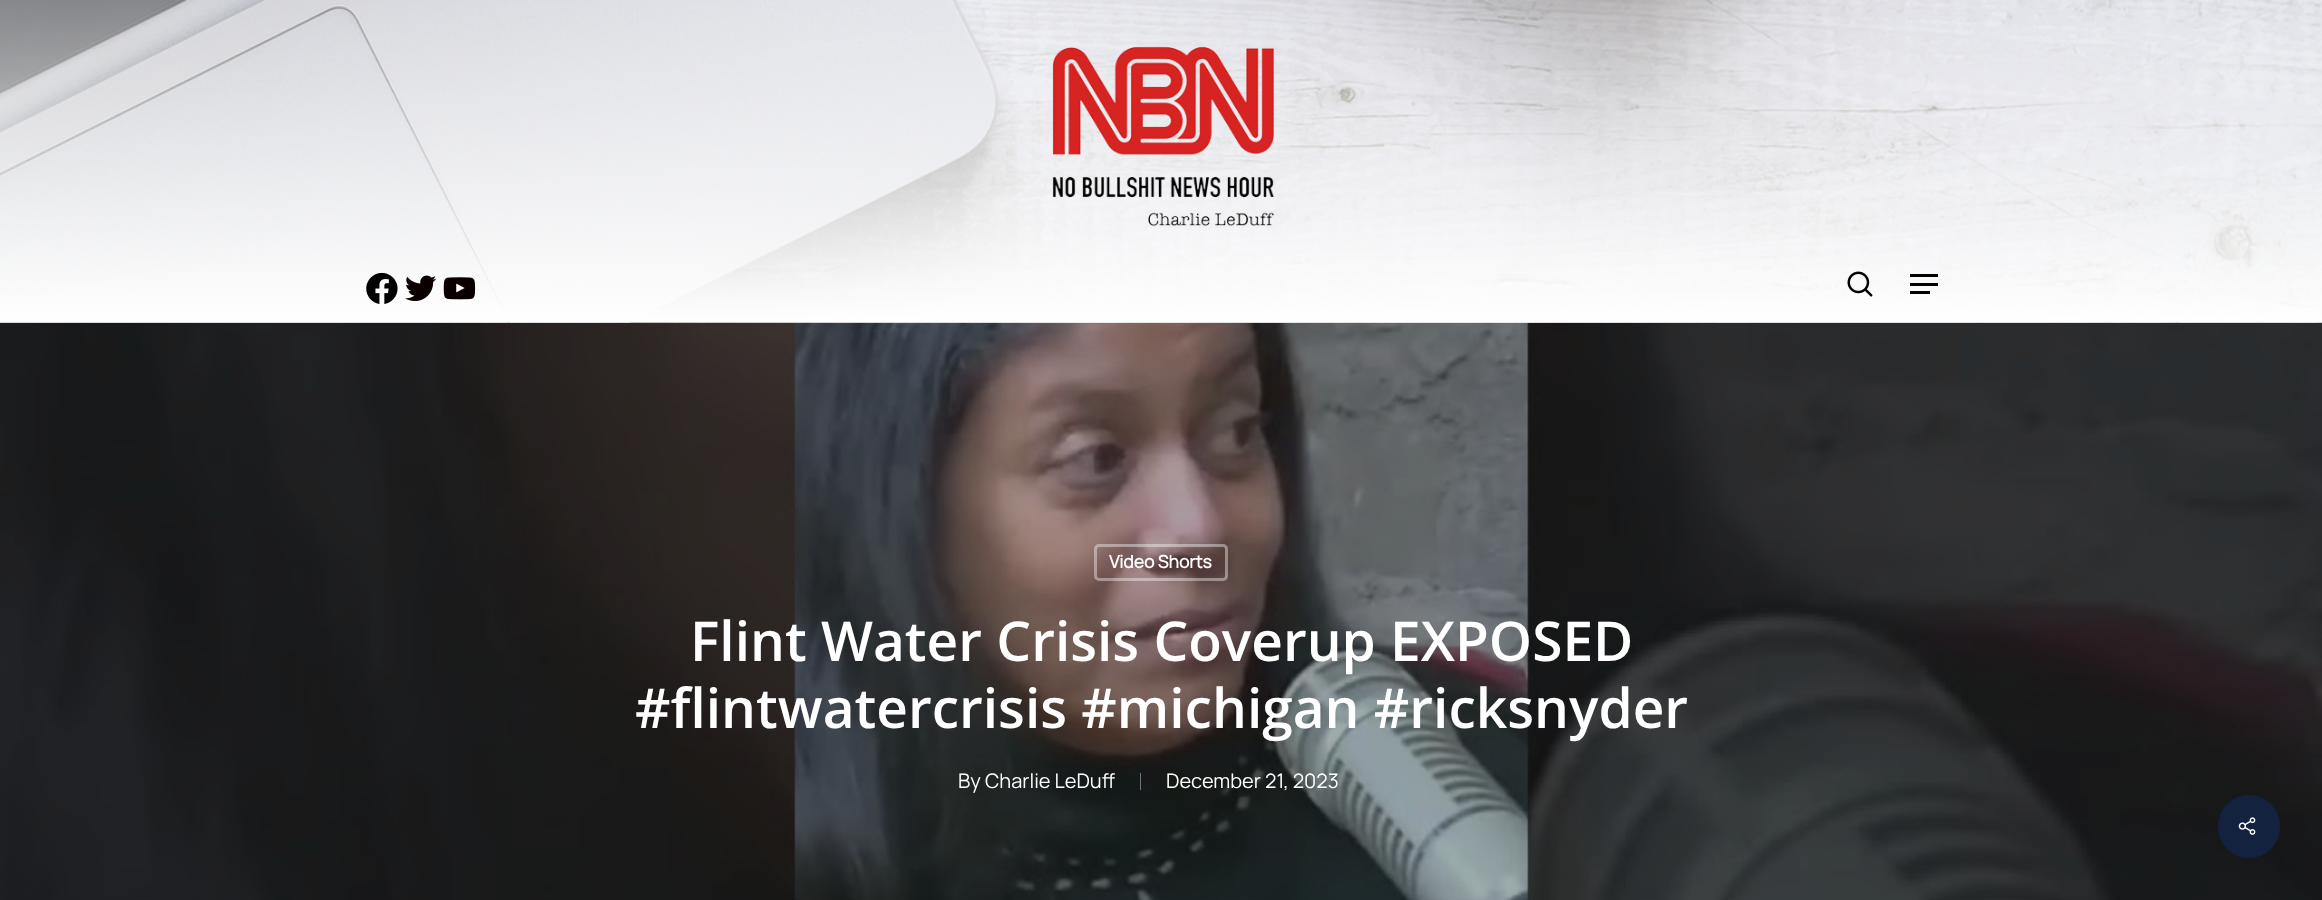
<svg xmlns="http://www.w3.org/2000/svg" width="2322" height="900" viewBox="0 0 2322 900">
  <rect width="100%" height="100%" fill="#fff"/>
  <image x="0" y="322" width="2322" height="578" href="img/7.png"/>
  <image x="0" y="0" width="2322" height="323" href="img/1.png"/>
  <image x="1052" y="46" width="222" height="181" href="img/2.png"/>
  <image x="366" y="272" width="32" height="32" href="img/3.png"/>
  <image x="405" y="275" width="32" height="26" href="img/4.png"/>
  <image x="443" y="277" width="33" height="23" href="img/5.png"/>
  <image x="1847" y="271" width="26" height="26" href="img/6.png"/>
  <path d="M1910 274h28v3H1910z" fill="#000"/>
  <path d="M1910 291h20v3H1910z" fill="#000"/>
  <path d="M1910 283h28v3H1910z" fill="#000"/>
  <rect x="1095.5" y="545.5" width="131" height="34" rx="3.5" fill="none" stroke="#ffffff66" stroke-width="3"/>
  <path d="M1140 773h1v17H1140z" fill="#737575"/>
  <rect x="2218" y="795" width="62" height="63" rx="31" fill="#13223e"/>
  <image x="2238" y="817" width="18" height="18" href="img/8.png"/>
  <text x="1109" y="568" font-family="Manrope" font-size="17.5" font-weight="bold" fill="#fff">Video Shorts</text>
  <g font-family="Open Sans" font-size="55" font-weight="600" fill="#fff">
    <text x="690" y="661">Flint Water Crisis Coverup EXPOSED</text>
    <text x="635" y="728">#flintwatercrisis #michigan #ricksnyder</text>
  </g>
  <g font-family="Manrope" font-size="20" font-weight="200" fill="#fff">
    <text x="958" y="788">By</text>
    <text x="985" y="788">Charlie LeDuff</text>
    <text x="1166" y="788">December 21, 2023</text>
  </g>
</svg>
